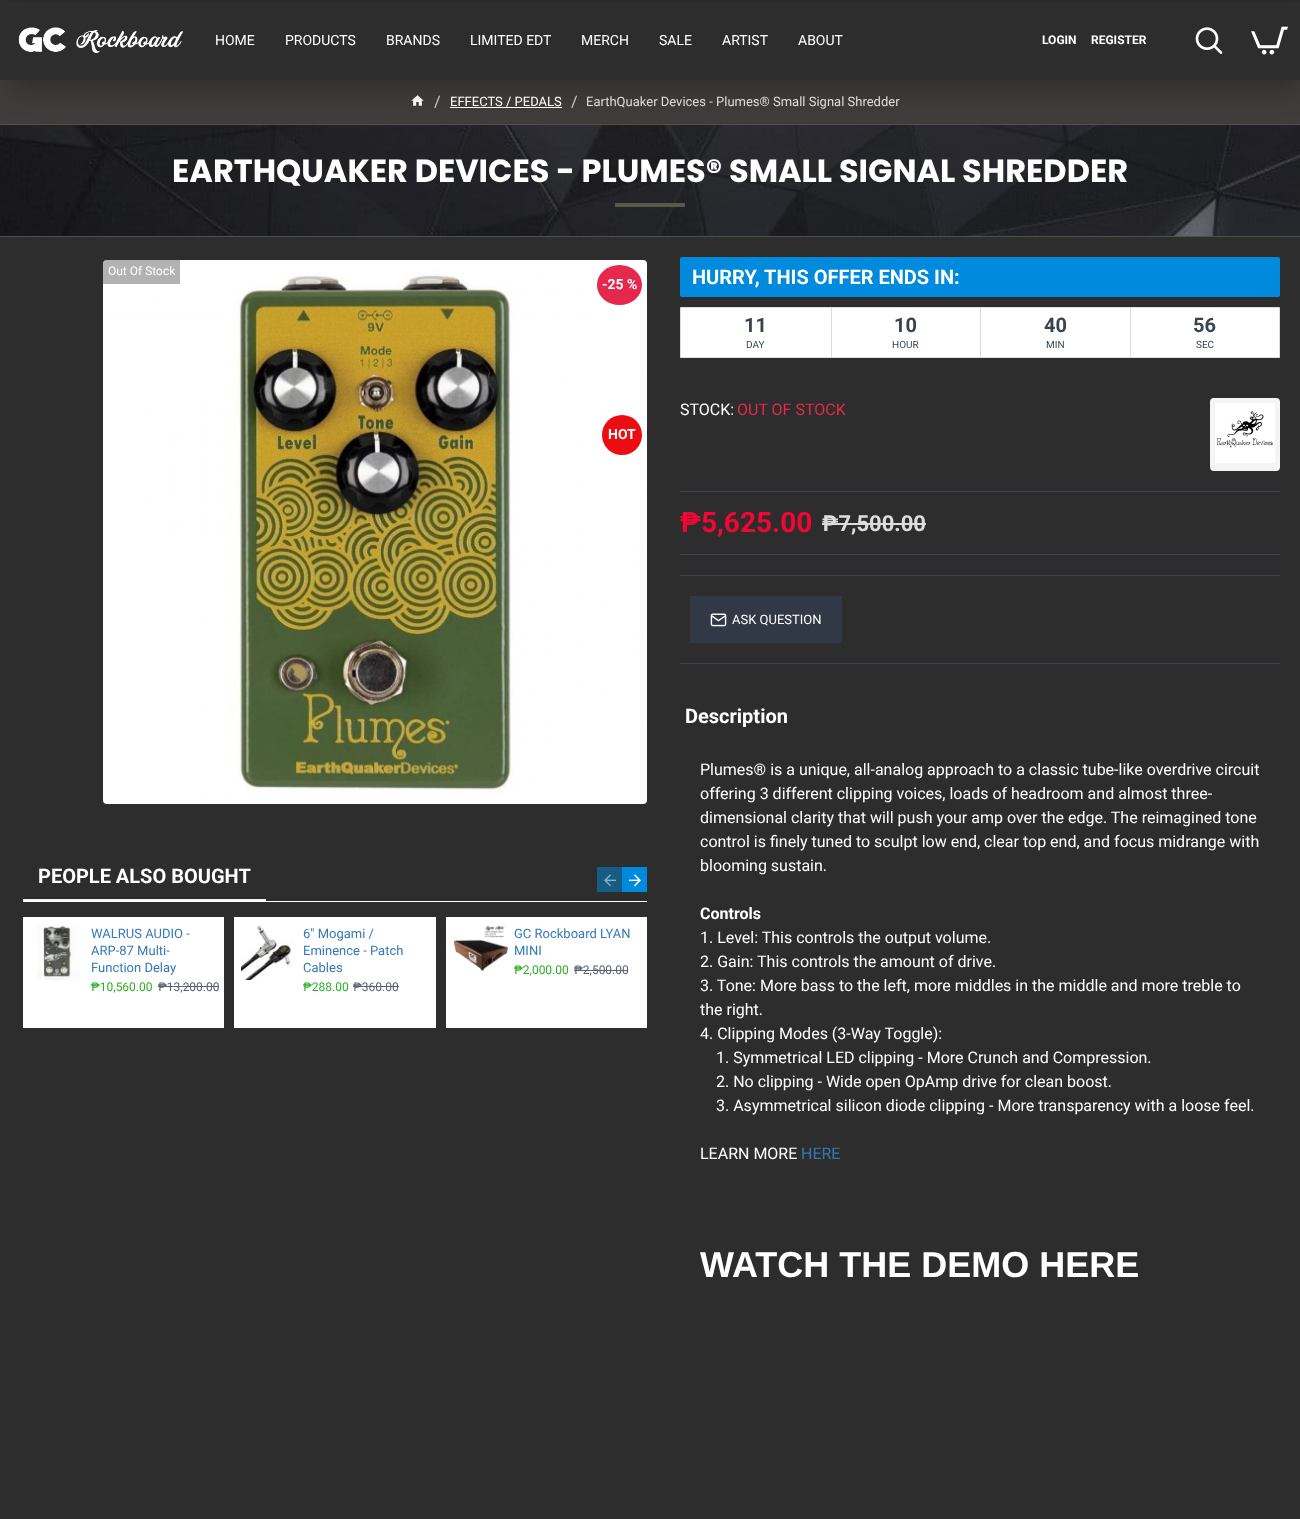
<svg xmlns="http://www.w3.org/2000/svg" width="1300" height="1519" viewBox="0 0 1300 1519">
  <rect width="100%" height="100%" fill="#2d2d2d"/>
  <path d="M0 80h1300v44H0z" fill="#3e3d3b"/>
  <image x="411" y="95" width="13" height="11" href="img/4.png"/>
  <path d="M450 107h112v1H450z" fill="#fff"/>
  <image x="0" y="125" width="1300" height="111" href="img/5.png"/>
  <path d="M0 124h1300v1H0z" fill="#4f5050"/>
  <path d="M10 15h1290v70H10z" fill="#0000004d" filter="blur(15px)"/>
  <path d="M0 2h1300v78H0z" fill="#2d2d2d"/>
  <image x="18" y="27" width="166" height="27" href="img/1.png"/>
  <image x="1195" y="27" width="28" height="27" href="img/2.png"/>
  <image x="1251" y="26" width="37" height="29" href="img/3.png"/>
  <path d="M0 236h1300v1H0z" fill="#4f5050"/>
  <path d="M615 203h70v4H615z" fill="#5d5746"/>
  <image x="103" y="260" width="544" height="544" href="img/6.png"/>
  <path d="M107 260H180V284H103V264C103 262 105 260 107 260Z" fill="#0000004d"/>
  <ellipse cx="619.5" cy="285" rx="22.5" ry="20" fill="#e7284d"/>
  <circle cx="622" cy="435" r="20" fill="#eb0d11"/>
  <path d="M23 901h624v1H23z" fill="#fff"/>
  <path d="M23 899h243v2H23z" fill="#f5f5f5"/>
  <path d="M597 867h25v25H597z" fill="#175c85"/>
  <image x="604" y="874" width="12" height="13" href="img/7.png"/>
  <path d="M622 867h25v25H622z" fill="#008add"/>
  <image x="629" y="874" width="12" height="13" href="img/8.png"/>
  <path d="M23 917h201v111H23z" fill="#fff"/>
  <image x="37" y="924" width="43" height="56" href="img/9.png"/>
  <path d="M158 986h61v1H158z" fill="#596077"/>
  <path d="M234 917h202v111H234z" fill="#fff"/>
  <image x="241" y="924" width="53" height="56" href="img/10.png"/>
  <path d="M353 986h46v1H353z" fill="#596077"/>
  <path d="M446 917h201v111H446z" fill="#fff"/>
  <image x="453" y="925" width="56" height="46" href="img/11.png"/>
  <path d="M574 970h54v1H574z" fill="#596077"/>
  <rect x="680" y="257" width="600" height="40" rx="2" fill="#008add"/>
  <path d="M680.5 307.5h599v50H680.5z" fill="#fff" stroke="#ddd"/>
  <path d="M831 308h1v49H831z" fill="#ddd"/>
  <path d="M980 308h1v49H980z" fill="#ddd"/>
  <path d="M1130 308h1v49H1130z" fill="#ddd"/>
  <rect x="1210" y="398" width="70" height="73" rx="4" fill="#f5f5f5"/>
  <image x="1215" y="403" width="60" height="60" href="img/12.png"/>
  <path d="M680 491h600v1H680z" fill="#38444f"/>
  <path d="M680 554h600v1H680z" fill="#38444f"/>
  <path d="M822 523h104v2H822z" fill="#ddd"/>
  <path d="M680 575h600v1H680z" fill="#38444f"/>
  <rect x="690" y="596" width="152" height="47" rx="1" fill="#313846"/>
  <image x="710" y="613" width="17" height="14" href="img/13.png"/>
  <path d="M680 663h600v1H680z" fill="#38444f"/>
  <g font-family="Roboto" font-size="14" fill="#fff">
    <text x="215" y="45">HOME</text>
    <text x="285" y="45">PRODUCTS</text>
    <text x="386" y="45">BRANDS</text>
    <text x="470" y="45">LIMITED EDT</text>
    <text x="581" y="45">MERCH</text>
    <text x="659" y="45">SALE</text>
    <text x="722" y="45">ARTIST</text>
    <text x="798" y="45">ABOUT</text>
  </g>
  <g font-family="Roboto" font-size="12" font-weight="bold" fill="#fff">
    <text x="1042" y="44">LOGIN</text>
    <text x="1091" y="44">REGISTER</text>
  </g>
  <text x="434" y="107" font-family="Roboto" font-size="16" fill="#ccc">/</text>
  <text x="450" y="106" font-family="Roboto" font-size="13" fill="#fff">EFFECTS / PEDALS</text>
  <text x="571" y="107" font-family="Roboto" font-size="16" fill="#ccc">/</text>
  <text x="586" y="106" font-family="Roboto" font-size="13" fill="#ddd">EarthQuaker Devices - Plumes® Small Signal Shredder</text>
  <text x="172" y="182" font-family="Poppins" font-size="32" font-weight="bold" fill="#fff">EARTHQUAKER DEVICES - PLUMES® SMALL SIGNAL SHREDDER</text>
  <text x="108" y="275" font-family="Roboto" font-size="12" fill="#fff">Out Of Stock</text>
  <g font-family="Roboto" font-size="14" font-weight="bold" fill="#fff">
    <text x="602" y="289">-25 %</text>
    <text x="608" y="439">HOT</text>
  </g>
  <text x="38" y="883" font-family="Roboto" font-size="20" font-weight="bold" fill="#fff">PEOPLE ALSO BOUGHT</text>
  <g font-family="Roboto" font-size="13" fill="#337ab7">
    <text x="91" y="938">WALRUS AUDIO -</text>
    <text x="91" y="955">ARP-87 Multi-</text>
    <text x="91" y="972">Function Delay</text>
  </g>
  <text x="91" y="991" font-family="Roboto" font-size="12" fill="#2eaf23">₱10,560.00</text>
  <text x="158" y="991" font-family="Roboto" font-size="12" fill="#596077">₱13,200.00</text>
  <g font-family="Roboto" font-size="13" fill="#337ab7">
    <text x="303" y="938">6" Mogami /</text>
    <text x="303" y="955">Eminence - Patch</text>
    <text x="303" y="972">Cables</text>
  </g>
  <text x="303" y="991" font-family="Roboto" font-size="12" fill="#2eaf23">₱288.00</text>
  <text x="353" y="991" font-family="Roboto" font-size="12" fill="#596077">₱360.00</text>
  <g font-family="Roboto" font-size="13" fill="#337ab7">
    <text x="514" y="938">GC Rockboard LYAN</text>
    <text x="514" y="955">MINI</text>
  </g>
  <text x="514" y="974" font-family="Roboto" font-size="12" fill="#2eaf23">₱2,000.00</text>
  <text x="574" y="974" font-family="Roboto" font-size="12" fill="#596077">₱2,500.00</text>
  <text x="692" y="284" font-family="Roboto" font-size="20" font-weight="bold" fill="#fff">HURRY, THIS OFFER ENDS IN:</text>
  <text x="744" y="332" font-family="Roboto" font-size="20" font-weight="bold" fill="#38444f">11</text>
  <text x="746" y="348" font-family="Roboto" font-size="10" fill="#38444f">DAY</text>
  <text x="894" y="332" font-family="Roboto" font-size="20" font-weight="bold" fill="#38444f">10</text>
  <text x="892" y="348" font-family="Roboto" font-size="10" fill="#38444f">HOUR</text>
  <text x="1044" y="332" font-family="Roboto" font-size="20" font-weight="bold" fill="#38444f">40</text>
  <text x="1046" y="348" font-family="Roboto" font-size="10" fill="#38444f">MIN</text>
  <text x="1193" y="332" font-family="Roboto" font-size="20" font-weight="bold" fill="#38444f">56</text>
  <text x="1196" y="348" font-family="Roboto" font-size="10" fill="#38444f">SEC</text>
  <text x="680" y="415" font-family="Roboto" font-size="16" fill="#fff">STOCK:</text>
  <text x="737" y="415" font-family="Roboto" font-size="16" fill="#e7284d">OUT OF STOCK</text>
  <text x="680" y="532" font-family="Roboto" font-size="28" font-weight="bold" fill="#f40634">₱5,625.00</text>
  <text x="822" y="531" font-family="Roboto" font-size="22" font-weight="bold" fill="#ddd">₱7,500.00</text>
  <text x="732" y="624" font-family="Roboto" font-size="13" fill="#fff">ASK QUESTION</text>
  <text x="685" y="723" font-family="Roboto" font-size="20" font-weight="bold" fill="#fff">Description</text>
  <g font-family="Roboto" font-size="16" fill="#fff">
    <text x="700" y="775">Plumes® is a unique, all-analog approach to a classic tube-like overdrive circuit</text>
    <text x="700" y="799">offering 3 different clipping voices, loads of headroom and almost three-</text>
    <text x="700" y="823">dimensional clarity that will push your amp over the edge. The reimagined tone</text>
    <text x="700" y="847">control is finely tuned to sculpt low end, clear top end, and focus midrange with</text>
    <text x="700" y="871">blooming sustain.</text>
  </g>
  <text x="700" y="919" font-family="Roboto" font-size="16" font-weight="bold" fill="#fff">Controls</text>
  <g font-family="Roboto" font-size="16" fill="#fff">
    <text x="700" y="943">1. Level: This controls the output volume.</text>
    <text x="700" y="967">2. Gain: This controls the amount of drive.</text>
    <text x="700" y="991">3. Tone: More bass to the left, more middles in the middle and more treble to</text>
    <text x="700" y="1015">the right.</text>
    <text x="700" y="1039">4. Clipping Modes (3-Way Toggle):</text>
    <text x="716" y="1063">1. Symmetrical LED clipping - More Crunch and Compression.</text>
    <text x="716" y="1087">2. No clipping - Wide open OpAmp drive for clean boost.</text>
    <text x="716" y="1111">3. Asymmetrical silicon diode clipping - More transparency with a loose feel.</text>
    <text x="700" y="1159">LEARN MORE</text>
  </g>
  <text x="801" y="1159" font-family="Roboto" font-size="16" fill="#337ab7">HERE</text>
  <text x="700" y="1277" font-family="Liberation Sans" font-size="36" font-weight="bold" fill="#fff">WATCH THE DEMO HERE</text>
</svg>
